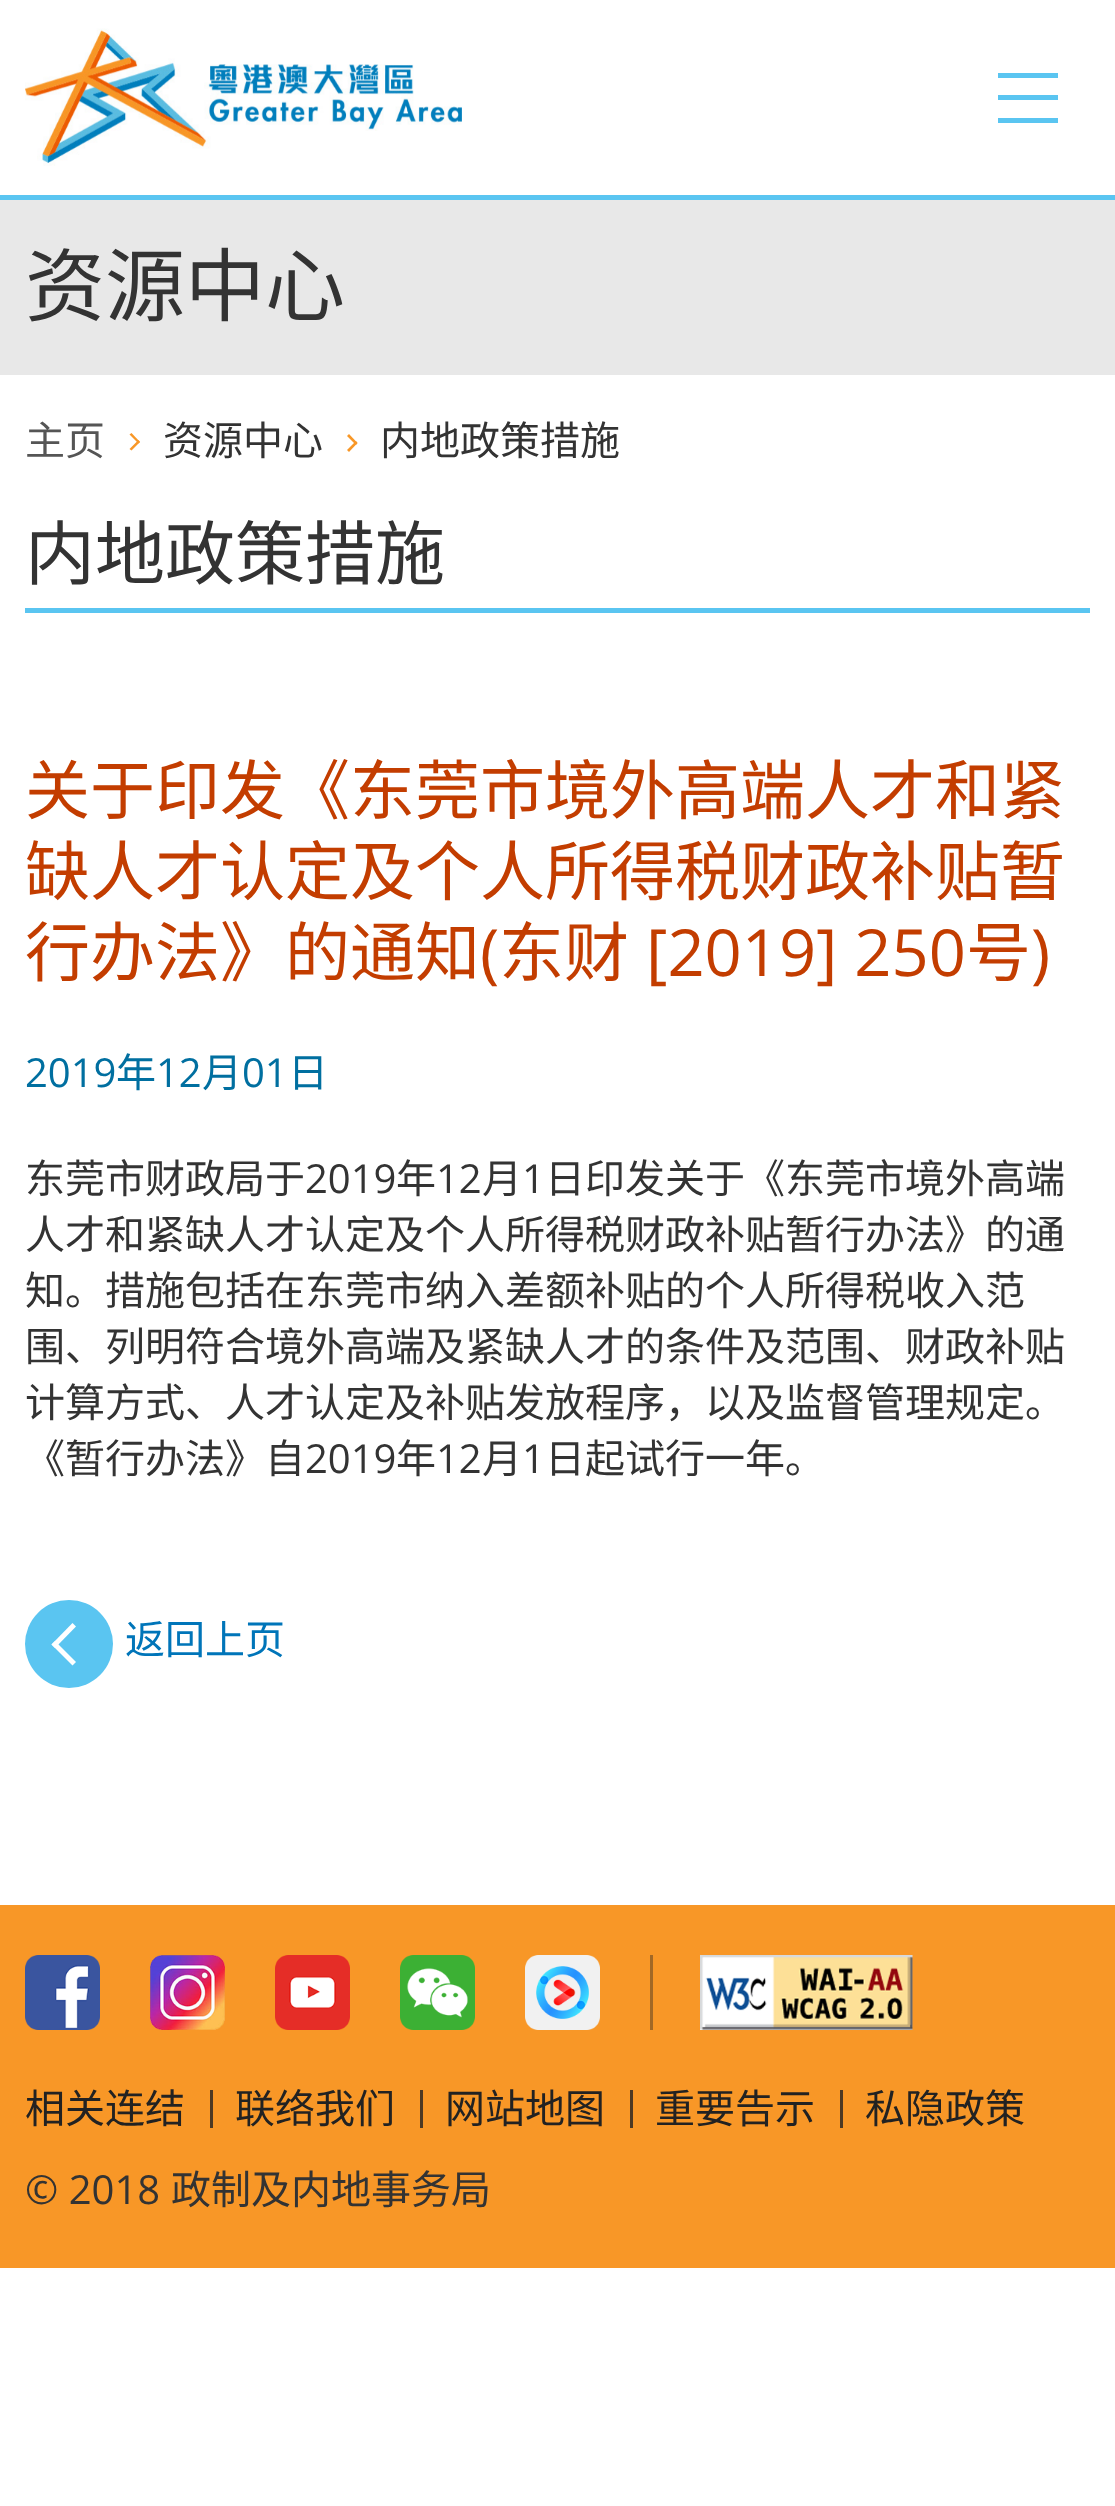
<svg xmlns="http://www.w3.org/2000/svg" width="1115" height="2506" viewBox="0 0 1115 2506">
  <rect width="100%" height="100%" fill="#fff"/>
  <path d="M0 195h1115v5H0z" fill="#5ac5f1"/>
  <image x="25" y="28" width="437" height="138" href="img/1.png"/>
  <path d="M998 73h60v5H998z" fill="#5ac5f1"/>
  <path d="M998 95h60v5H998z" fill="#5ac5f1"/>
  <path d="M998 118h60v5H998z" fill="#5ac5f1"/>
  <path d="M0 200h1115v175H0z" fill="#e8e8e8"/>
  <path d="M131.5 433L140 442L138.5 443.5L129.5 434.5Z" fill="#f89727"/>
  <path d="M138.5 440L140 442L131.5 450.5L129.5 449Z" fill="#f89727"/>
  <path d="M349 434L357.5 443L356 445L347 436Z" fill="#f89727"/>
  <path d="M356 441L357.5 443L349 452L347 450Z" fill="#f89727"/>
  <path d="M25 608h1065v5H25z" fill="#5ac5f1"/>
  <circle cx="69" cy="1644" r="44" fill="#5ac5f1"/>
  <path d="M51.5 1644.5L72.5 1623L76 1626.5L55 1648Z" fill="#fff"/>
  <path d="M51.5 1644.5L55 1641L76 1662L72.5 1665.5Z" fill="#fff"/>
  <path d="M0 1905h1115v363H0z" fill="#f89727"/>
  <image x="25" y="1955" width="75" height="75" href="img/2.png"/>
  <image x="150" y="1955" width="75" height="75" href="img/3.png"/>
  <image x="275" y="1955" width="75" height="75" href="img/4.png"/>
  <image x="400" y="1955" width="75" height="75" href="img/5.png"/>
  <image x="525" y="1955" width="75" height="75" href="img/6.png"/>
  <image x="700" y="1955" width="213" height="75" href="img/7.png"/>
  <path d="M650 1955h3v75H650z" fill="#a26825"/>
  <path d="M210 2090h3v38H210z" fill="#4d3923"/>
  <path d="M420 2090h3v38H420z" fill="#4d3923"/>
  <path d="M630 2090h3v38H630z" fill="#4d3923"/>
  <path d="M840 2090h3v38H840z" fill="#4d3923"/>
  <text x="25" y="315" font-family="Noto Sans CJK SC" font-size="80" fill="#333">资源中心</text>
  <text x="25" y="455" font-family="Noto Sans CJK SC" font-size="40" fill="#555">主页</text>
  <g font-family="Noto Sans CJK SC" font-size="40" fill="#333">
    <text x="163" y="455">资源中心</text>
    <text x="380" y="455">内地政策措施</text>
  </g>
  <text x="25" y="579" font-family="Noto Sans CJK SC" font-size="70" fill="#333">内地政策措施</text>
  <g font-family="Noto Sans CJK SC" font-size="65" fill="#c33d00">
    <text x="25" y="814">关于印发《东莞市境外高端人才和紧</text>
    <text x="25" y="895">缺人才认定及个人所得税财政补贴暂</text>
    <text x="25" y="976">行办法》的通知</text>
  </g>
  <text x="480" y="976" font-family="Open Sans" font-size="65" fill="#c33d00">(</text>
  <text x="499" y="976" font-family="Noto Sans CJK SC" font-size="65" fill="#c33d00">东财</text>
  <text x="646" y="976" font-family="Open Sans" font-size="65" fill="#c33d00">[2019] 250</text>
  <text x="966" y="976" font-family="Noto Sans CJK SC" font-size="65" fill="#c33d00">号</text>
  <text x="1031" y="976" font-family="Open Sans" font-size="65" fill="#c33d00">)</text>
  <text x="25" y="1087" font-family="Open Sans" font-size="40" fill="#006fa0">2019</text>
  <text x="116" y="1087" font-family="Noto Sans CJK SC" font-size="40" fill="#006fa0">年</text>
  <text x="156" y="1087" font-family="Open Sans" font-size="40" fill="#006fa0">12</text>
  <text x="202" y="1087" font-family="Noto Sans CJK SC" font-size="40" fill="#006fa0">月</text>
  <text x="242" y="1087" font-family="Open Sans" font-size="40" fill="#006fa0">01</text>
  <text x="288" y="1087" font-family="Noto Sans CJK SC" font-size="40" fill="#006fa0">日</text>
  <text x="25" y="1193" font-family="Noto Sans CJK SC" font-size="40" fill="#333">东莞市财政局于</text>
  <text x="305" y="1193" font-family="Open Sans" font-size="40" fill="#333">2019</text>
  <text x="396" y="1193" font-family="Noto Sans CJK SC" font-size="40" fill="#333">年</text>
  <text x="436" y="1193" font-family="Open Sans" font-size="40" fill="#333">12</text>
  <text x="482" y="1193" font-family="Noto Sans CJK SC" font-size="40" fill="#333">月</text>
  <text x="522" y="1193" font-family="Open Sans" font-size="40" fill="#333">1</text>
  <g font-family="Noto Sans CJK SC" font-size="40" fill="#333">
    <text x="545" y="1193">日印发关于《东莞市境外高端</text>
    <text x="25" y="1249">人才和紧缺人才认定及个人所得税财政补贴暂行办法》的通</text>
    <text x="25" y="1305">知。措施包括在东莞市纳入差额补贴的个人所得税收入范</text>
    <text x="25" y="1361">围、列明符合境外高端及紧缺人才的条件及范围、财政补贴</text>
    <text x="25" y="1417">计算方式、人才认定及补贴发放程序，以及监督管理规定。</text>
    <text x="25" y="1473">《暂行办法》自</text>
  </g>
  <text x="305" y="1473" font-family="Open Sans" font-size="40" fill="#333">2019</text>
  <text x="396" y="1473" font-family="Noto Sans CJK SC" font-size="40" fill="#333">年</text>
  <text x="436" y="1473" font-family="Open Sans" font-size="40" fill="#333">12</text>
  <text x="482" y="1473" font-family="Noto Sans CJK SC" font-size="40" fill="#333">月</text>
  <text x="522" y="1473" font-family="Open Sans" font-size="40" fill="#333">1</text>
  <text x="545" y="1473" font-family="Noto Sans CJK SC" font-size="40" fill="#333">日起试行一年。</text>
  <text x="125" y="1654" font-family="Noto Sans CJK SC" font-size="40" fill="#0075b9">返回上页</text>
  <g font-family="Noto Sans CJK SC" font-size="40" fill="#222">
    <text x="25" y="2123">相关连结</text>
    <text x="235" y="2123">联络我们</text>
    <text x="445" y="2123">网站地图</text>
    <text x="655" y="2123">重要告示</text>
    <text x="865" y="2123">私隐政策</text>
  </g>
  <text x="25" y="2204" font-family="Open Sans" font-size="40" fill="#333">© 2018</text>
  <text x="171" y="2204" font-family="Noto Sans CJK SC" font-size="40" fill="#333">政制及内地事务局</text>
</svg>
